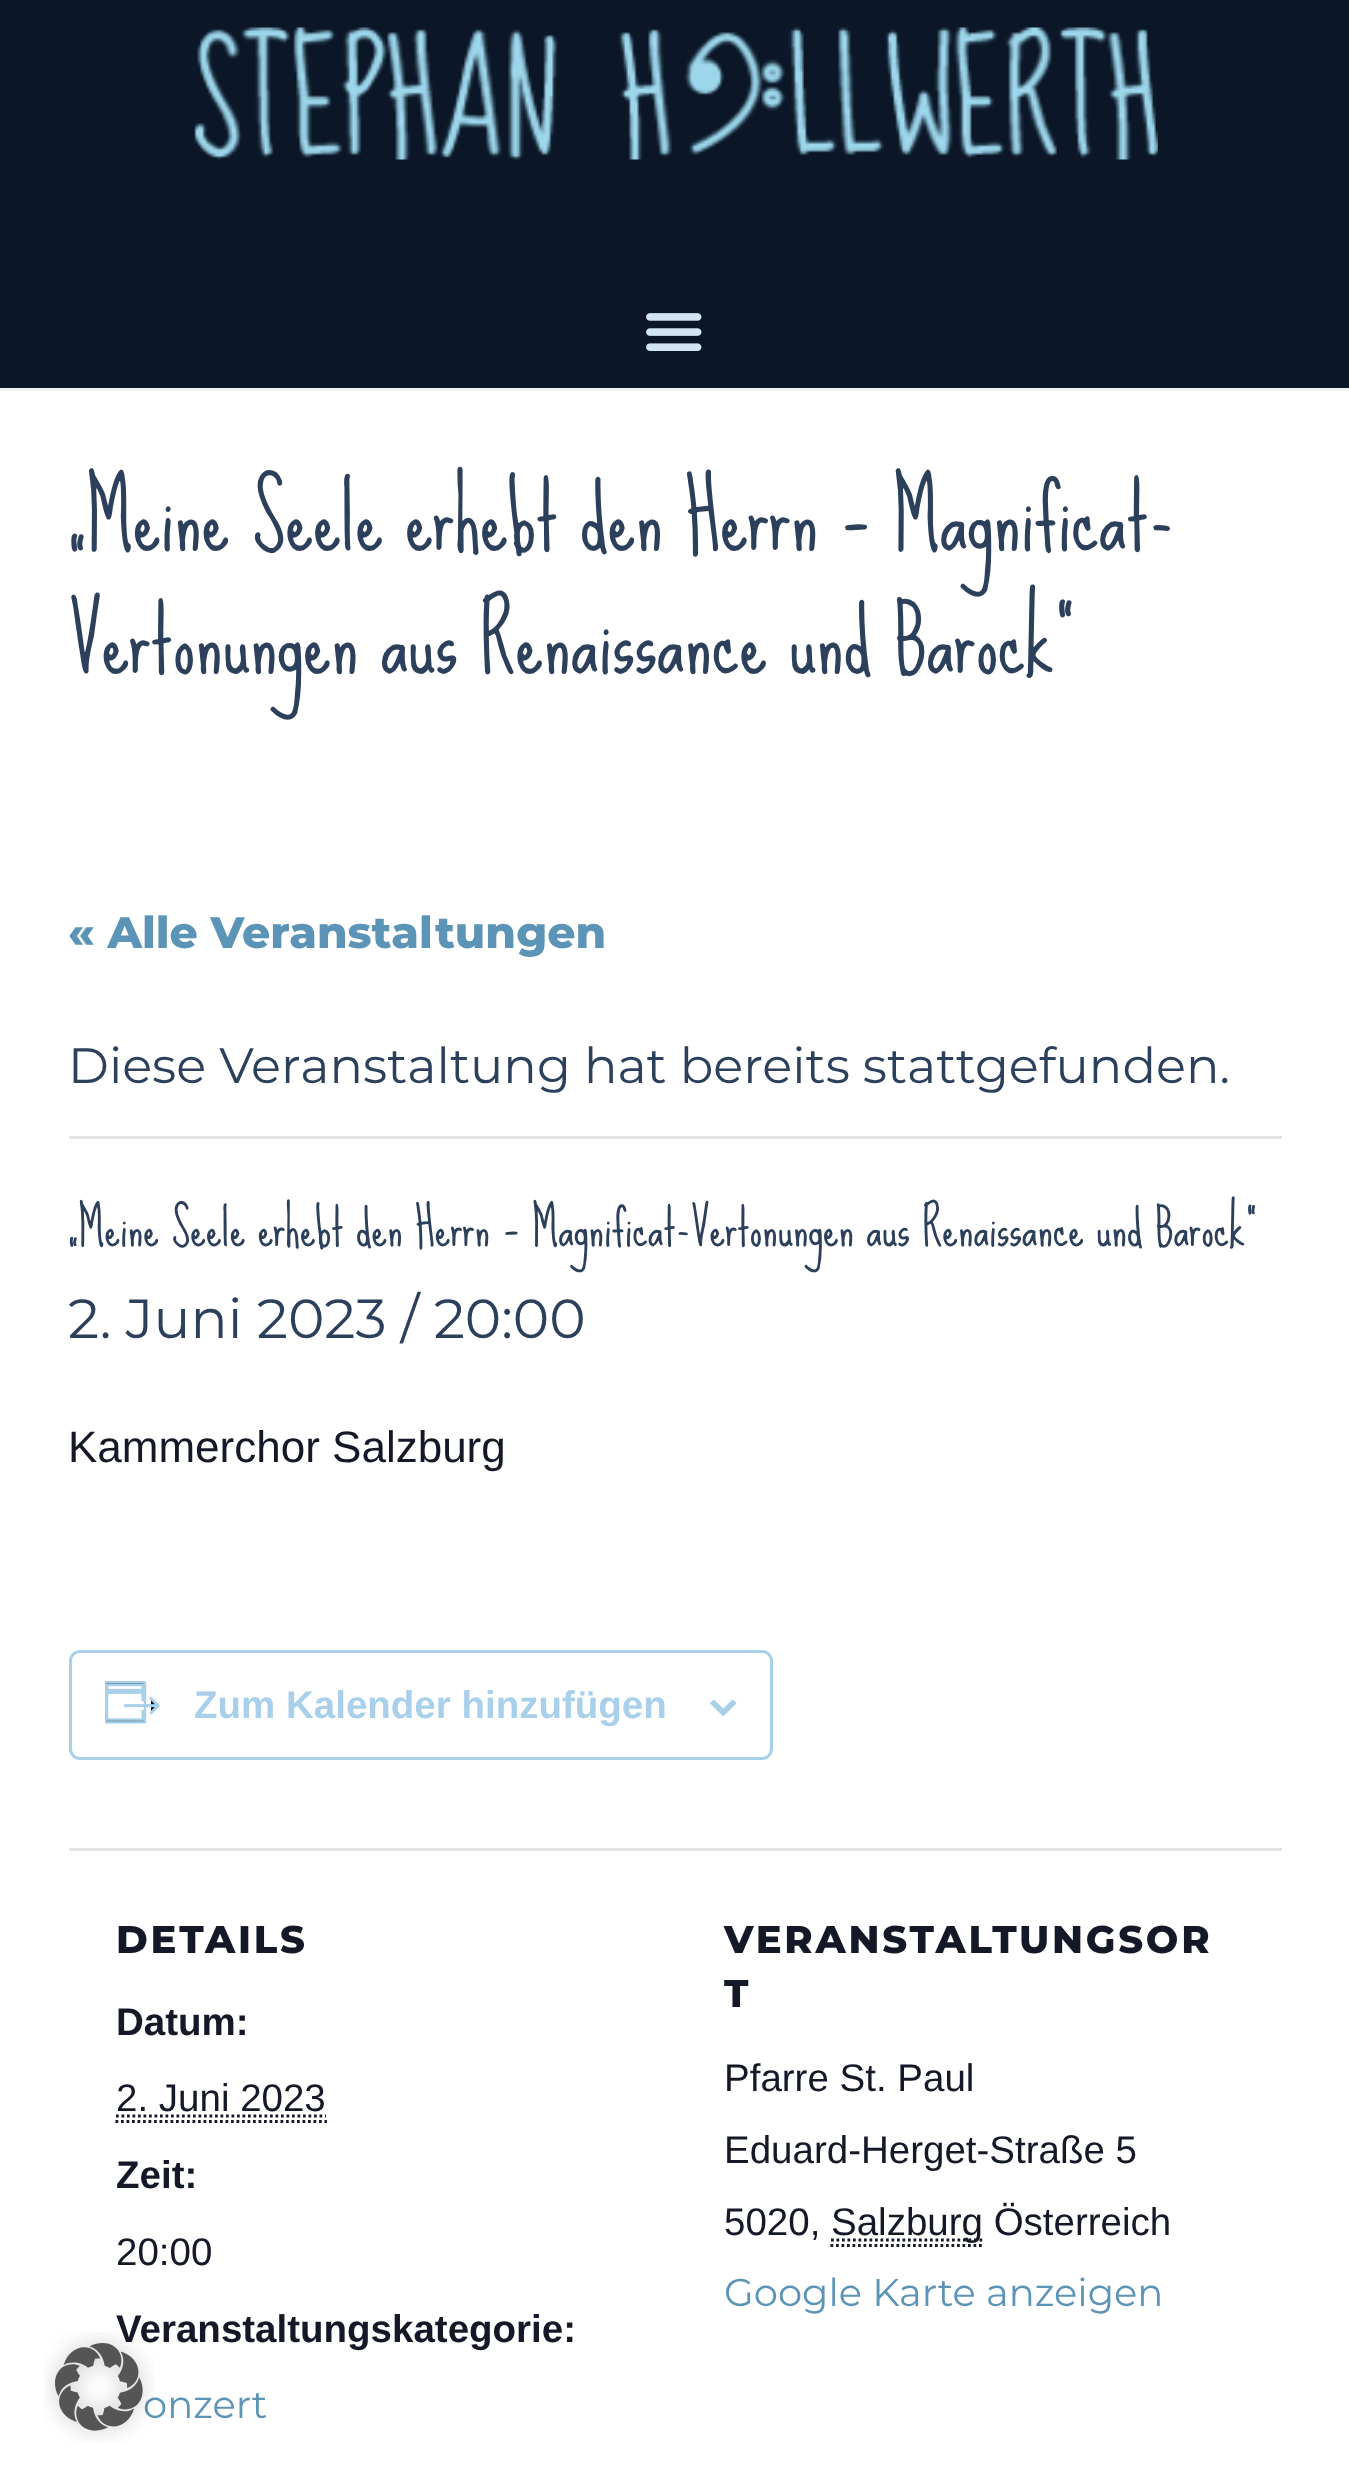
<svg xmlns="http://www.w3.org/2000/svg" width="1349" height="2486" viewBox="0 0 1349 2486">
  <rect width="100%" height="100%" fill="#fff"/>
  <path d="M0 388h1349v3H0z" fill="#f1f1f1"/>
  <path d="M0 0h1349v388H0z" fill="#0b1728"/>
  <image x="194" y="27" width="964" height="133" href="img/1.png"/>
  <image x="646" y="313" width="56" height="38" href="img/2.png"/>
  <path d="M69 1136h1213v3H69z" fill="#e4e4e4"/>
  <rect x="70.5" y="1651.5" width="701" height="107" rx="9.5" fill="none" stroke="#a8d0ea" stroke-width="3"/>
  <image x="105" y="1680" width="55" height="44" href="img/3.png"/>
  <image x="710" y="1700" width="27" height="16" href="img/4.png"/>
  <path d="M69 1848h1213v3H69z" fill="#e4e4e4"/>
  <path d="M115.5 2121.5H327" fill="none" stroke="#141827" stroke-width="2.8" stroke-dasharray="2.75 2.75"/>
  <path d="M116 2116H326" fill="none" stroke="#141827" stroke-width="2.8" stroke-dasharray="2.75 2.75"/>
  <path d="M830.5 2245.5H982" fill="none" stroke="#141827" stroke-width="2.8" stroke-dasharray="2.75 2.75"/>
  <path d="M831 2240H983" fill="none" stroke="#141827" stroke-width="2.8" stroke-dasharray="2.75 2.75"/>
  <g font-family="Sue Ellen Francisco" font-size="88" fill="#2c3f5b">
    <text x="68" y="550">„Meine Seele erhebt den Herrn – Magnificat-</text>
    <text x="68" y="673">Vertonungen aus Renaissance und Barock“</text>
  </g>
  <text x="68" y="948" font-family="Montserrat" font-size="44" font-weight="800" fill="#5b94b6">« Alle Veranstaltungen</text>
  <text x="68" y="1083" font-family="Montserrat" font-size="49.5" fill="#2c3f5b">Diese Veranstaltung hat bereits stattgefunden.</text>
  <text x="68" y="1246" font-family="Sue Ellen Francisco" font-size="49.5" fill="#2c3f5b">„Meine Seele erhebt den Herrn – Magnificat-Vertonungen aus Renaissance und Barock“</text>
  <text x="68" y="1338" font-family="Montserrat" font-size="55" fill="#2c3f5b">2. Juni 2023 / 20:00</text>
  <text x="68" y="1462" font-family="Liberation Sans" font-size="44" fill="#141827">Kammerchor Salzburg</text>
  <text x="194" y="1718" font-family="Liberation Sans" font-size="38.5" font-weight="bold" fill="#a8d0ea">Zum Kalender hinzufügen</text>
  <text x="116" y="1953" font-family="Montserrat" font-size="38.5" font-weight="800" letter-spacing="2.75" fill="#141827">DETAILS</text>
  <text x="116" y="2035" font-family="Liberation Sans" font-size="38.5" font-weight="bold" fill="#141827">Datum:</text>
  <text x="116" y="2111" font-family="Liberation Sans" font-size="38.5" fill="#141827">2. Juni 2023</text>
  <text x="116" y="2188" font-family="Liberation Sans" font-size="38.5" font-weight="bold" fill="#141827">Zeit:</text>
  <text x="116" y="2265" font-family="Liberation Sans" font-size="38.5" fill="#141827">20:00</text>
  <text x="116" y="2342" font-family="Liberation Sans" font-size="38.5" font-weight="bold" fill="#141827">Veranstaltungskategorie:</text>
  <text x="143" y="2418" font-family="Montserrat" font-size="38.5" fill="#5b94b6">onzert</text>
  <g font-family="Montserrat" font-size="38.5" font-weight="800" letter-spacing="2.75" fill="#141827">
    <text x="724" y="1953">VERANSTALTUNGSOR</text>
    <text x="724" y="2007">T</text>
  </g>
  <g font-family="Liberation Sans" font-size="38.5" fill="#141827">
    <text x="724" y="2091">Pfarre St. Paul</text>
    <text x="724" y="2163">Eduard-Herget-Straße 5</text>
    <text x="724" y="2235">5020,</text>
    <text x="831" y="2235">Salzburg Österreich</text>
  </g>
  <text x="724" y="2306" font-family="Montserrat" font-size="38.5" fill="#5b94b6">Google Karte anzeigen</text>
  <image x="44" y="2332" width="110" height="110" href="img/5.png"/>
</svg>
